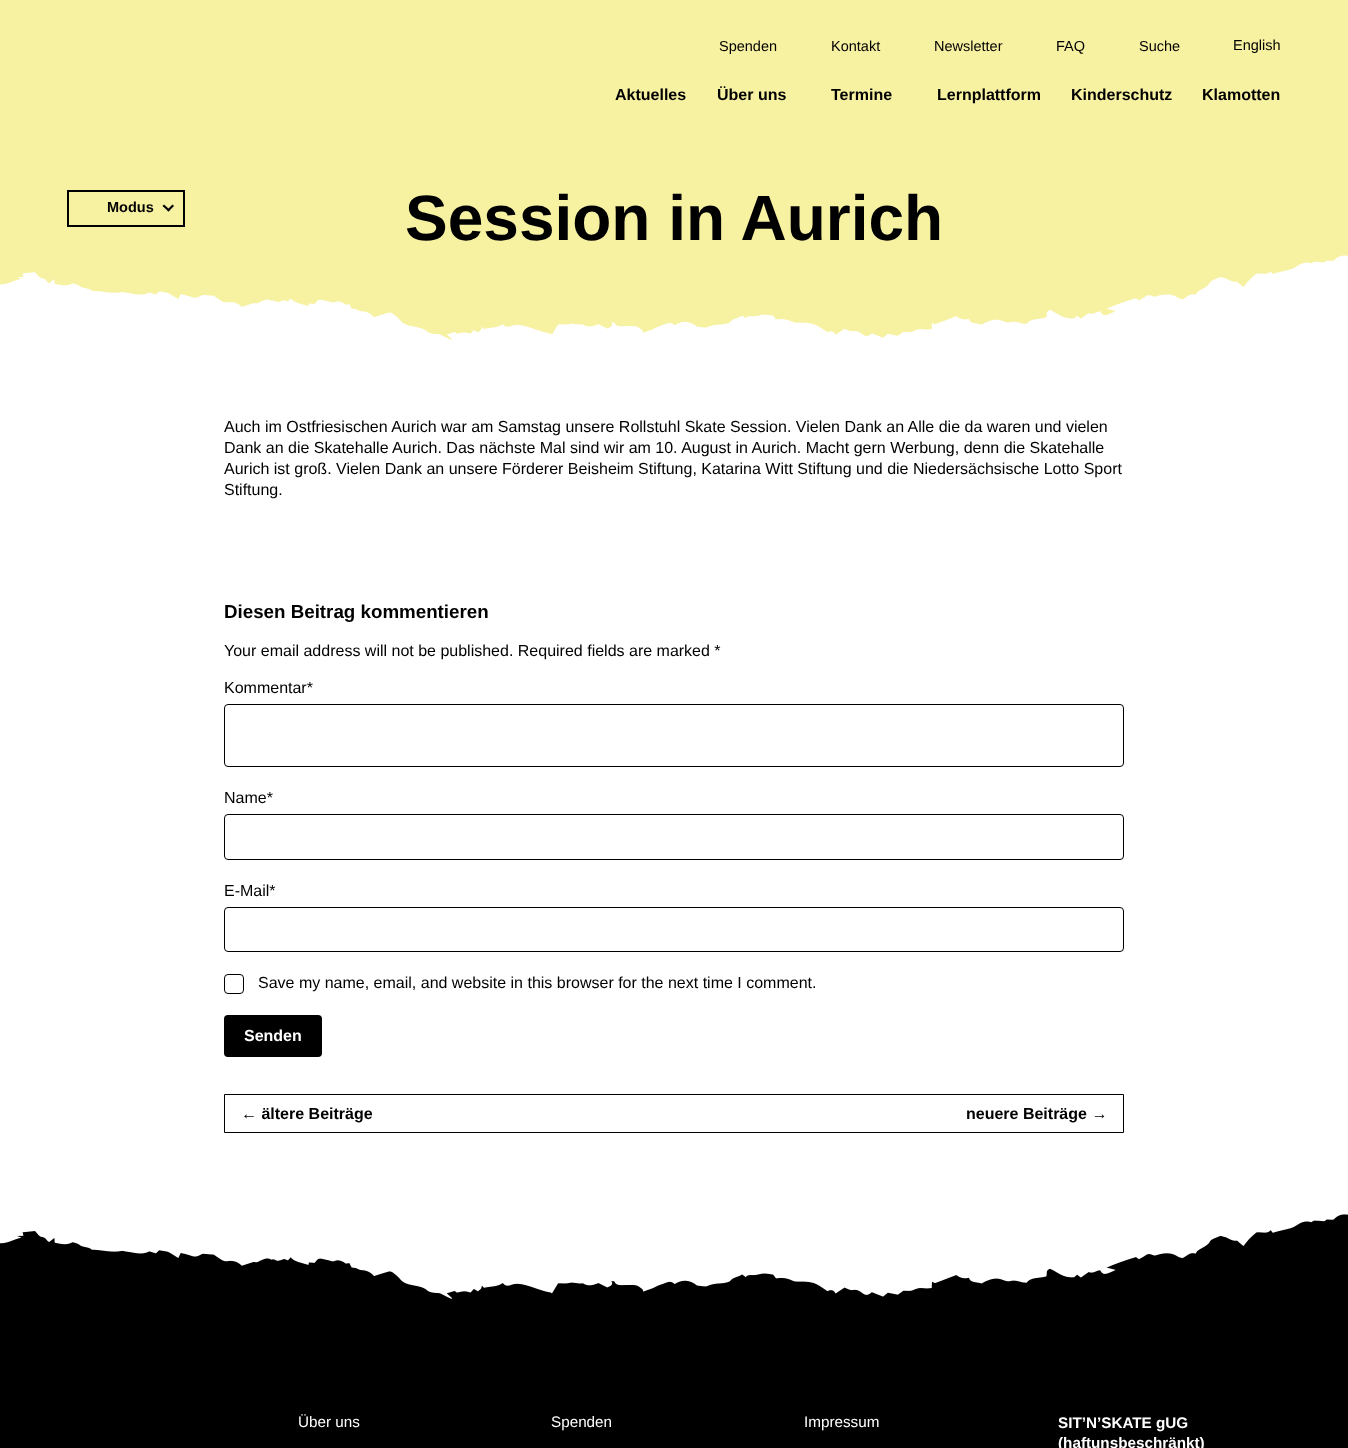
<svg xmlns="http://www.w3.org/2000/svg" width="1348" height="1448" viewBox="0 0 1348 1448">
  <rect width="100%" height="100%" fill="#fff"/>
  <path d="M0 0h1348v255H0z" fill="#f7f1a2"/>
  <path d="M68 191h116v35H68z" fill="none" stroke="#000" stroke-width="2"/>
  <path d="M172.5 204.5L174 206L168.5 211.5L167 210Z" fill="#000"/>
  <path d="M164 204.5L170 210L168.5 211.5L162.5 206Z" fill="#000"/>
  <image x="0" y="255" width="1348" height="85" href="img/1.png"/>
  <rect x="224.5" y="704.5" width="899" height="62" rx="3.5" fill="none" stroke="#000"/>
  <rect x="224.5" y="814.5" width="899" height="45" rx="3.5" fill="none" stroke="#000"/>
  <rect x="224.5" y="907.5" width="899" height="44" rx="3.5" fill="none" stroke="#000"/>
  <rect x="224.5" y="974.5" width="19" height="19" rx="3.5" fill="none" stroke="#000"/>
  <rect x="224" y="1015" width="98" height="42" rx="4" fill="#000"/>
  <path d="M224.5 1094.5h899v38H224.5z" fill="none" stroke="#000"/>
  <path d="M0 1214h1348v234H0z" fill="#000"/>
  <image x="0" y="1213" width="1348" height="86" href="img/2.png"/>
  <g font-family="Liberation Sans" font-size="14.5" fill="#000">
    <text x="719" y="51">Spenden</text>
    <text x="831" y="51">Kontakt</text>
    <text x="934" y="51">Newsletter</text>
    <text x="1056" y="51">FAQ</text>
    <text x="1139" y="51">Suche</text>
    <text x="1233" y="50">English</text>
  </g>
  <g font-family="Liberation Sans" font-size="16" font-weight="bold" fill="#000">
    <text x="615" y="100">Aktuelles</text>
    <text x="717" y="100">Über uns</text>
    <text x="831" y="100">Termine</text>
    <text x="937" y="100">Lernplattform</text>
    <text x="1071" y="100">Kinderschutz</text>
    <text x="1202" y="100">Klamotten</text>
  </g>
  <text x="107" y="212" font-family="Liberation Sans" font-size="14.5" font-weight="bold" fill="#000">Modus</text>
  <text x="405" y="240" font-family="Liberation Sans" font-size="64" font-weight="bold" fill="#000">Session in Aurich</text>
  <g font-family="Liberation Sans" font-size="16" fill="#000">
    <text x="224" y="432">Auch im Ostfriesischen Aurich war am Samstag unsere Rollstuhl Skate Session. Vielen Dank an Alle die da waren und vielen</text>
    <text x="224" y="453">Dank an die Skatehalle Aurich. Das nächste Mal sind wir am 10. August in Aurich. Macht gern Werbung, denn die Skatehalle</text>
    <text x="224" y="474">Aurich ist groß. Vielen Dank an unsere Förderer Beisheim Stiftung, Katarina Witt Stiftung und die Niedersächsische Lotto Sport</text>
    <text x="224" y="495">Stiftung.</text>
  </g>
  <text x="224" y="618" font-family="Liberation Sans" font-size="18.75" font-weight="bold" fill="#000">Diesen Beitrag kommentieren</text>
  <g font-family="Liberation Sans" font-size="16" fill="#000">
    <text x="224" y="656">Your email address will not be published. Required fields are marked *</text>
    <text x="224" y="693">Kommentar*</text>
    <text x="224" y="803">Name*</text>
    <text x="224" y="896">E-Mail*</text>
    <text x="258" y="988">Save my name, email, and website in this browser for the next time I comment.</text>
  </g>
  <text x="244" y="1041" font-family="Liberation Sans" font-size="16" font-weight="bold" fill="#fff">Senden</text>
  <g font-family="Liberation Sans" font-size="16" font-weight="bold" fill="#000">
    <text x="241" y="1119">← ältere Beiträge</text>
    <text x="966" y="1119">neuere Beiträge →</text>
  </g>
  <g font-family="Liberation Sans" font-size="15.25" fill="#fff">
    <text x="298" y="1427">Über uns</text>
    <text x="551" y="1427">Spenden</text>
    <text x="804" y="1427">Impressum</text>
  </g>
  <g font-family="Liberation Sans" font-size="15.25" font-weight="bold" fill="#fff">
    <text x="1058" y="1428">SIT’N’SKATE gUG</text>
    <text x="1058" y="1448">(haftunsbeschränkt)</text>
  </g>
</svg>
